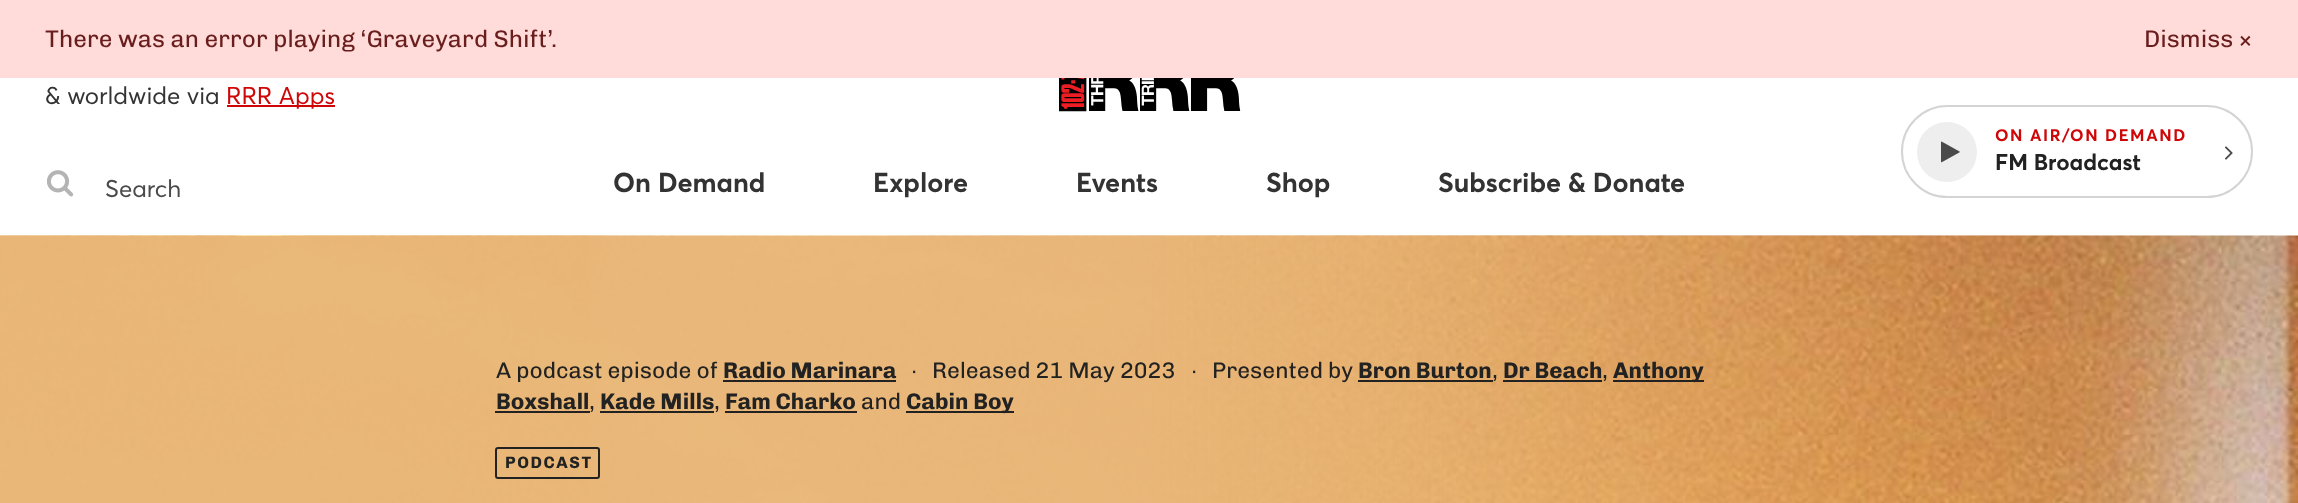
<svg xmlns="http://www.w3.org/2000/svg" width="2298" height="503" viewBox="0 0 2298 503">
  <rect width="100%" height="100%" fill="#fff"/>
  <path d="M0 0h2298v78H0z" fill="#ffdcd9"/>
  <path d="M227 105h108v2H227z" fill="#cf0607"/>
  <image x="47" y="170" width="27" height="27" href="img/1.png"/>
  <image x="1059" y="78" width="182" height="34" href="img/2.png"/>
  <rect x="1902" y="106" width="350" height="91" rx="45.5" fill="none" stroke="#d4d4d4" stroke-width="2"/>
  <circle cx="1947" cy="152" r="29" fill="#eee" stroke="#eee" stroke-width="2"/>
  <image x="1941" y="141" width="19" height="22" href="img/3.png"/>
  <image x="2225" y="146" width="8" height="14" href="img/4.png"/>
  <image x="0" y="235" width="2298" height="268" href="img/5.png"/>
  <path d="M723 380h173v2H723z" fill="#222"/>
  <path d="M1358 380h135v2H1358z" fill="#222"/>
  <path d="M1503 380h99v2H1503z" fill="#222"/>
  <path d="M1613 380h91v2H1613z" fill="#222"/>
  <path d="M495 411h95v2H495z" fill="#222"/>
  <path d="M600 411h114v2H600z" fill="#222"/>
  <path d="M725 411h132v2H725z" fill="#222"/>
  <path d="M906 411h108v2H906z" fill="#222"/>
  <rect x="496" y="448" width="103" height="30" rx="2" fill="none" stroke="#222" stroke-width="2"/>
  <g font-family="Chivo" font-size="24" fill="#691d1d">
    <text x="45" y="47">There was an error playing ‘Graveyard Shift’.</text>
    <text x="2144" y="47">Dismiss</text>
    <text x="2238" y="47">×</text>
  </g>
  <text x="45" y="104" font-family="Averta" font-size="24" fill="#333">&amp; worldwide via</text>
  <text x="226" y="104" font-family="Averta" font-size="24" fill="#cf0607">RRR Apps</text>
  <text x="105" y="197" font-family="Averta" font-size="24" fill="#4a4a4a">Search</text>
  <text x="1995" y="141" font-family="Averta" font-size="16.5" font-weight="bold" letter-spacing="1.6" fill="#cf0607">ON AIR/ON DEMAND</text>
  <text x="1995" y="170" font-family="Averta" font-size="22.5" font-weight="bold" fill="#222">FM Broadcast</text>
  <g font-family="Averta" font-size="27" font-weight="bold" fill="#333">
    <text x="613" y="192">On Demand</text>
    <text x="873" y="192">Explore</text>
    <text x="1076" y="192">Events</text>
    <text x="1266" y="192">Shop</text>
    <text x="1438" y="192">Subscribe &amp; Donate</text>
  </g>
  <text x="496" y="378" font-family="Chivo" font-size="22.5" fill="#222">A podcast episode of</text>
  <text x="723" y="378" font-family="Chivo" font-size="22.5" font-weight="bold" fill="#222">Radio Marinara</text>
  <text x="911" y="378" font-family="Liberation Sans" font-size="22.5" fill="#222">∙</text>
  <text x="932" y="378" font-family="Chivo" font-size="22.5" fill="#222">Released 21 May 2023</text>
  <text x="1191" y="378" font-family="Liberation Sans" font-size="22.5" fill="#222">∙</text>
  <text x="1212" y="378" font-family="Chivo" font-size="22.5" fill="#222">Presented by</text>
  <g font-family="Chivo" font-size="22.5" font-weight="bold" fill="#222">
    <text x="1358" y="378">Bron Burton</text>
    <text x="1503" y="378">Dr Beach</text>
    <text x="1613" y="378">Anthony</text>
  </g>
  <g font-family="Chivo" font-size="22.5" fill="#222">
    <text x="1492" y="378">,</text>
    <text x="1602" y="378">,</text>
  </g>
  <text x="496" y="409" font-family="Chivo" font-size="22.5" font-weight="bold" fill="#222">Boxshall</text>
  <text x="589" y="409" font-family="Chivo" font-size="22.5" fill="#222">,</text>
  <text x="600" y="409" font-family="Chivo" font-size="22.5" font-weight="bold" fill="#222">Kade Mills</text>
  <text x="714" y="409" font-family="Chivo" font-size="22.5" fill="#222">,</text>
  <text x="725" y="409" font-family="Chivo" font-size="22.5" font-weight="bold" fill="#222">Fam Charko</text>
  <text x="861" y="409" font-family="Chivo" font-size="22.5" fill="#222">and</text>
  <text x="906" y="409" font-family="Chivo" font-size="22.5" font-weight="bold" fill="#222">Cabin Boy</text>
  <text x="505" y="468" font-family="Chivo" font-size="16.5" font-weight="bold" letter-spacing="1.6" fill="#222">PODCAST</text>
</svg>
